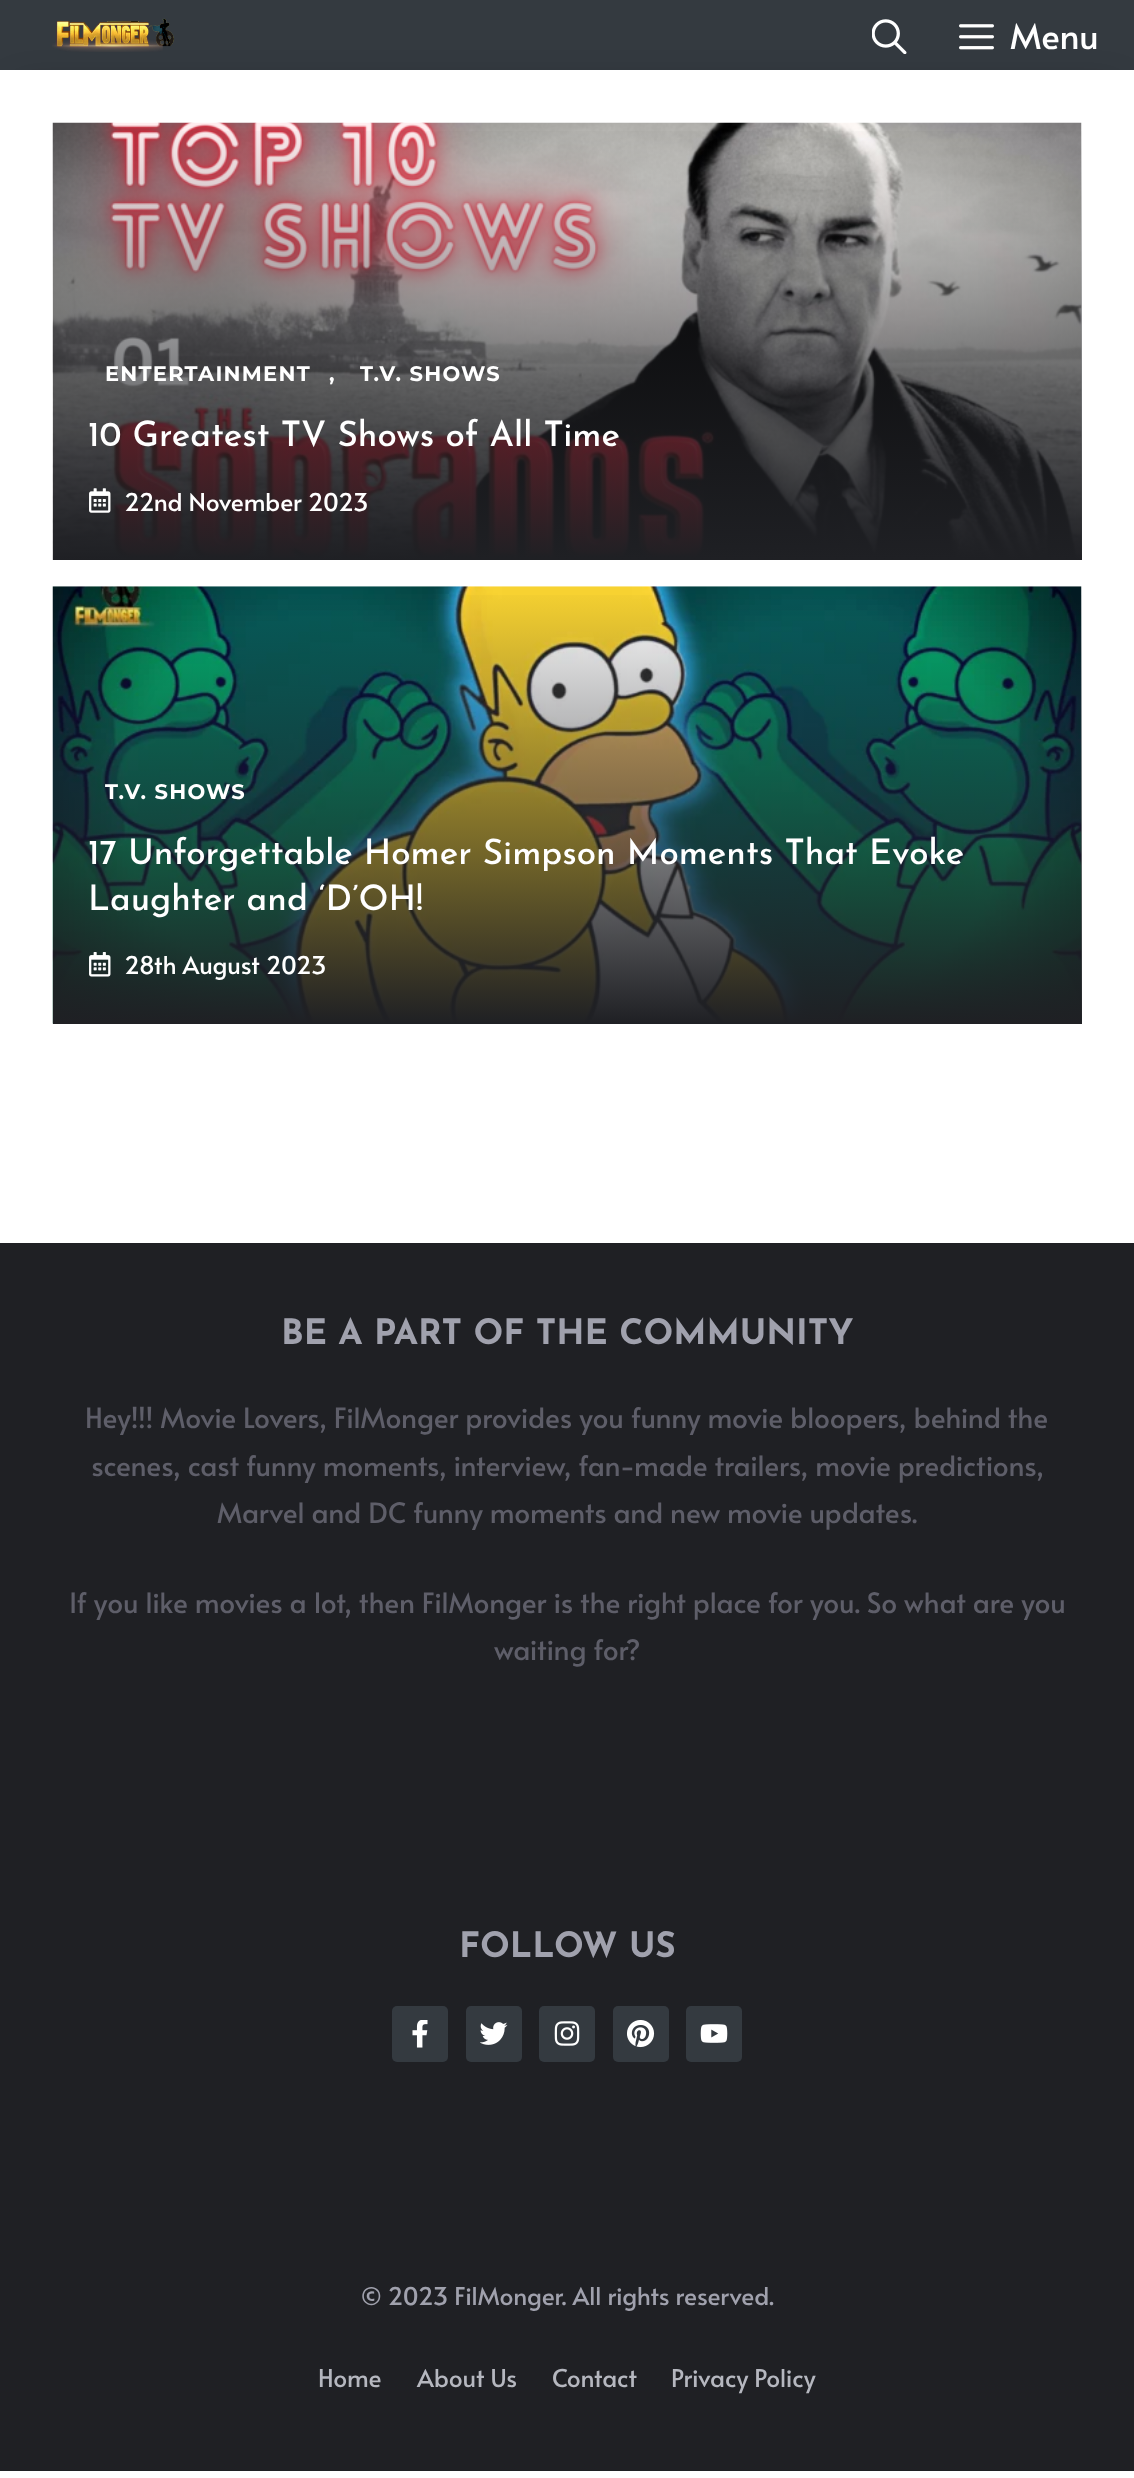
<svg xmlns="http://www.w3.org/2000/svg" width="1134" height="2478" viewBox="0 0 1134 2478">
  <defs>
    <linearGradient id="g1" gradientUnits="userSpaceOnUse" x1="567" y1="122" x2="567" y2="560"><stop offset="0" stop-color="#1f2024" stop-opacity="0"/><stop offset="1" stop-color="#1f2024"/></linearGradient>
    <linearGradient id="g2" gradientUnits="userSpaceOnUse" x1="567" y1="586" x2="567" y2="1024"><stop offset="0" stop-color="#1f2024" stop-opacity="0"/><stop offset="1" stop-color="#1f2024"/></linearGradient>
  </defs>
  <rect width="100%" height="100%" fill="#fff"/>
  <path d="M0 0h1134v70H0z" fill="#343a40"/>
  <path d="M18 88h1099v1137H18z" fill="#0000004d" filter="blur(17.5px)"/>
  <image x="52" y="18" width="122" height="34" href="img/1.png"/>
  <image x="872" y="19" width="35" height="35" href="img/2.png"/>
  <image x="959" y="24" width="35" height="26" href="img/3.png"/>
  <path d="M0 70h1134v1173H0z" fill="#fff"/>
  <image x="52" y="122" width="1030" height="438" href="img/4.png"/>
  <path d="M53 131h1029v429H53z" fill="url(#g1)"/>
  <image x="89" y="488" width="22" height="25" href="img/5.png"/>
  <image x="52" y="586" width="1030" height="438" href="img/6.png"/>
  <path d="M53 595h1029v429H53z" fill="url(#g2)"/>
  <image x="89" y="952" width="22" height="25" href="img/7.png"/>
  <path d="M0 1243h1134v1228H0z" fill="#1f2024"/>
  <rect x="392" y="2006" width="56" height="56" rx="5" fill="#343a40"/>
  <image x="412" y="2020" width="16" height="28" href="img/8.png"/>
  <rect x="466" y="2006" width="56" height="56" rx="5" fill="#343a40"/>
  <image x="480" y="2022" width="28" height="23" href="img/9.png"/>
  <rect x="539" y="2006" width="56" height="56" rx="5" fill="#343a40"/>
  <image x="554" y="2021" width="26" height="25" href="img/10.png"/>
  <rect x="613" y="2006" width="56" height="56" rx="5" fill="#343a40"/>
  <image x="627" y="2020" width="28" height="28" href="img/11.png"/>
  <rect x="686" y="2006" width="56" height="56" rx="5" fill="#343a40"/>
  <image x="700" y="2024" width="28" height="19" href="img/12.png"/>
  <text x="1010" y="49" font-family="Alata" font-size="35" fill="#fff">Menu</text>
  <g font-family="Montserrat" font-size="21" font-weight="bold" letter-spacing="1.25" fill="#fff">
    <text x="105" y="381">ENTERTAINMENT</text>
    <text x="329" y="381">,</text>
    <text x="360" y="381">T.V. SHOWS</text>
  </g>
  <text x="88" y="446" font-family="Josefin Sans" font-size="35" font-weight="500" fill="#fff">10 Greatest TV Shows of All Time</text>
  <text x="124" y="511" font-family="Alata" font-size="24.5" fill="#fff">22nd November 2023</text>
  <text x="105" y="799" font-family="Montserrat" font-size="21" font-weight="bold" letter-spacing="1.25" fill="#fff">T.V. SHOWS</text>
  <g font-family="Josefin Sans" font-size="35" font-weight="500" fill="#fff">
    <text x="88" y="864">17 Unforgettable Homer Simpson Moments That Evoke</text>
    <text x="88" y="910">Laughter and ‘D’OH!</text>
  </g>
  <text x="124" y="974" font-family="Alata" font-size="24.5" fill="#fff">28th August 2023</text>
  <text x="281" y="1344" font-family="Josefin Sans" font-size="35" font-weight="bold" fill="#a0a1ad">BE A PART OF THE COMMUNITY</text>
  <g font-family="Alata" font-size="28" fill="#5e5e69">
    <text x="85" y="1428">Hey!!! Movie Lovers, FilMonger provides you funny movie bloopers, behind the</text>
    <text x="91" y="1476">scenes, cast funny moments, interview, fan-made trailers, movie predictions,</text>
    <text x="217" y="1523">Marvel and DC funny moments and new movie updates.</text>
    <text x="69" y="1613">If you like movies a lot, then FilMonger is the right place for you. So what are you</text>
    <text x="494" y="1660">waiting for?</text>
  </g>
  <text x="459" y="1957" font-family="Josefin Sans" font-size="35" font-weight="bold" fill="#a0a1ad">FOLLOW US</text>
  <text x="361" y="2305" font-family="Alata" font-size="24.5" fill="#a0a1ad">© 2023 FilMonger. All rights reserved.</text>
  <g font-family="Alata" font-size="24.5" fill="#b5b7bf">
    <text x="318" y="2387">Home</text>
    <text x="417" y="2387">About Us</text>
    <text x="552" y="2387">Contact</text>
    <text x="671" y="2387">Privacy Policy</text>
  </g>
</svg>
